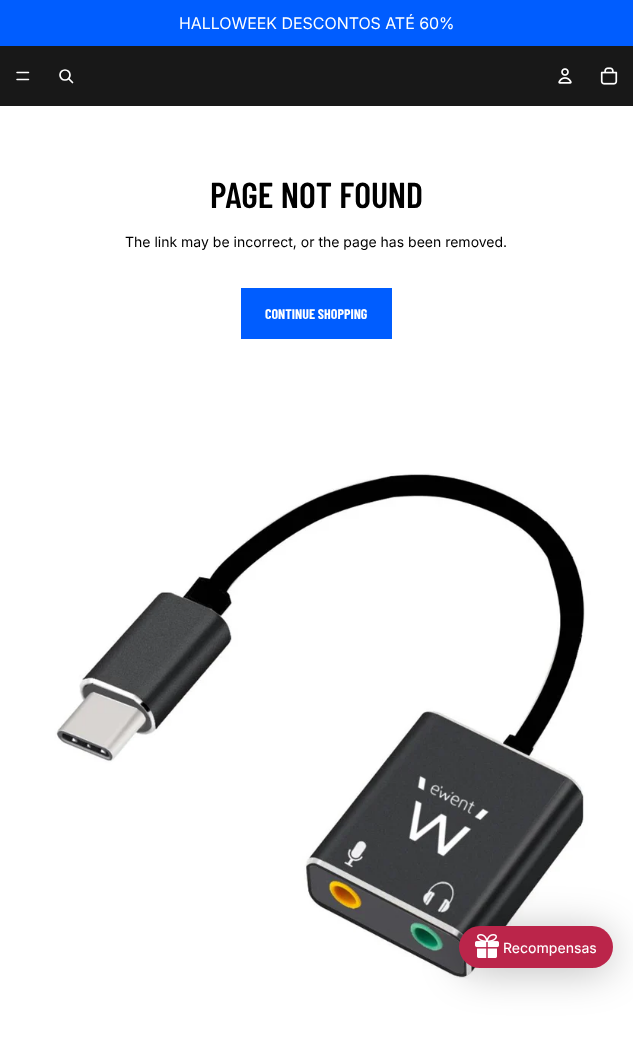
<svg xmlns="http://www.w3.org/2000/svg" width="633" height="1040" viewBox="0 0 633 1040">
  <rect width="100%" height="100%" fill="#fff"/>
  <path d="M0 0h633v46H0z" fill="#005dff"/>
  <path d="M0 46h633v60H0z" fill="#181818"/>
  <path d="M17 72.5H28.5M17 79.5H28.5" fill="none" stroke="#fff" stroke-width="1.5" stroke-linecap="round"/>
  <circle cx="65" cy="75" r="5" fill="none" stroke="#fff" stroke-width="1.7"/>
  <path d="M69 79L72.5 82.5" fill="none" stroke="#fff" stroke-width="1.7" stroke-linecap="round" stroke-linejoin="round"/>
  <image x="558" y="68" width="14" height="16" href="img/1.png"/>
  <image x="600" y="67" width="18" height="18" href="img/2.png"/>
  <path d="M241 288h151v51H241z" fill="#005dff"/>
  <image x="0" y="409" width="633" height="631" href="img/3.png"/>
  <rect x="459" y="930" width="154" height="42" rx="21" fill="#00000040" filter="blur(20px)"/>
  <rect x="459" y="926" width="154" height="42" rx="21" fill="#bb254a"/>
  <image x="475" y="934" width="24" height="24" href="img/4.png"/>
  <text x="179" y="29" font-family="Inter" font-size="16" fill="#fff">HALLOWEEK DESCONTOS ATÉ 60%</text>
  <text x="210" y="208" font-family="Barlow Condensed" font-size="36" font-weight="600" fill="#000">PAGE NOT FOUND</text>
  <text x="125" y="247" font-family="'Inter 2'" font-size="14" fill="#000">The link may be incorrect, or the page has been removed.</text>
  <text x="265" y="319" font-family="Barlow Condensed" font-size="14" font-weight="bold" fill="#fff">CONTINUE SHOPPING</text>
  <text x="503" y="953" font-family="'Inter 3'" font-size="14" fill="#fff">Recompensas</text>
</svg>
